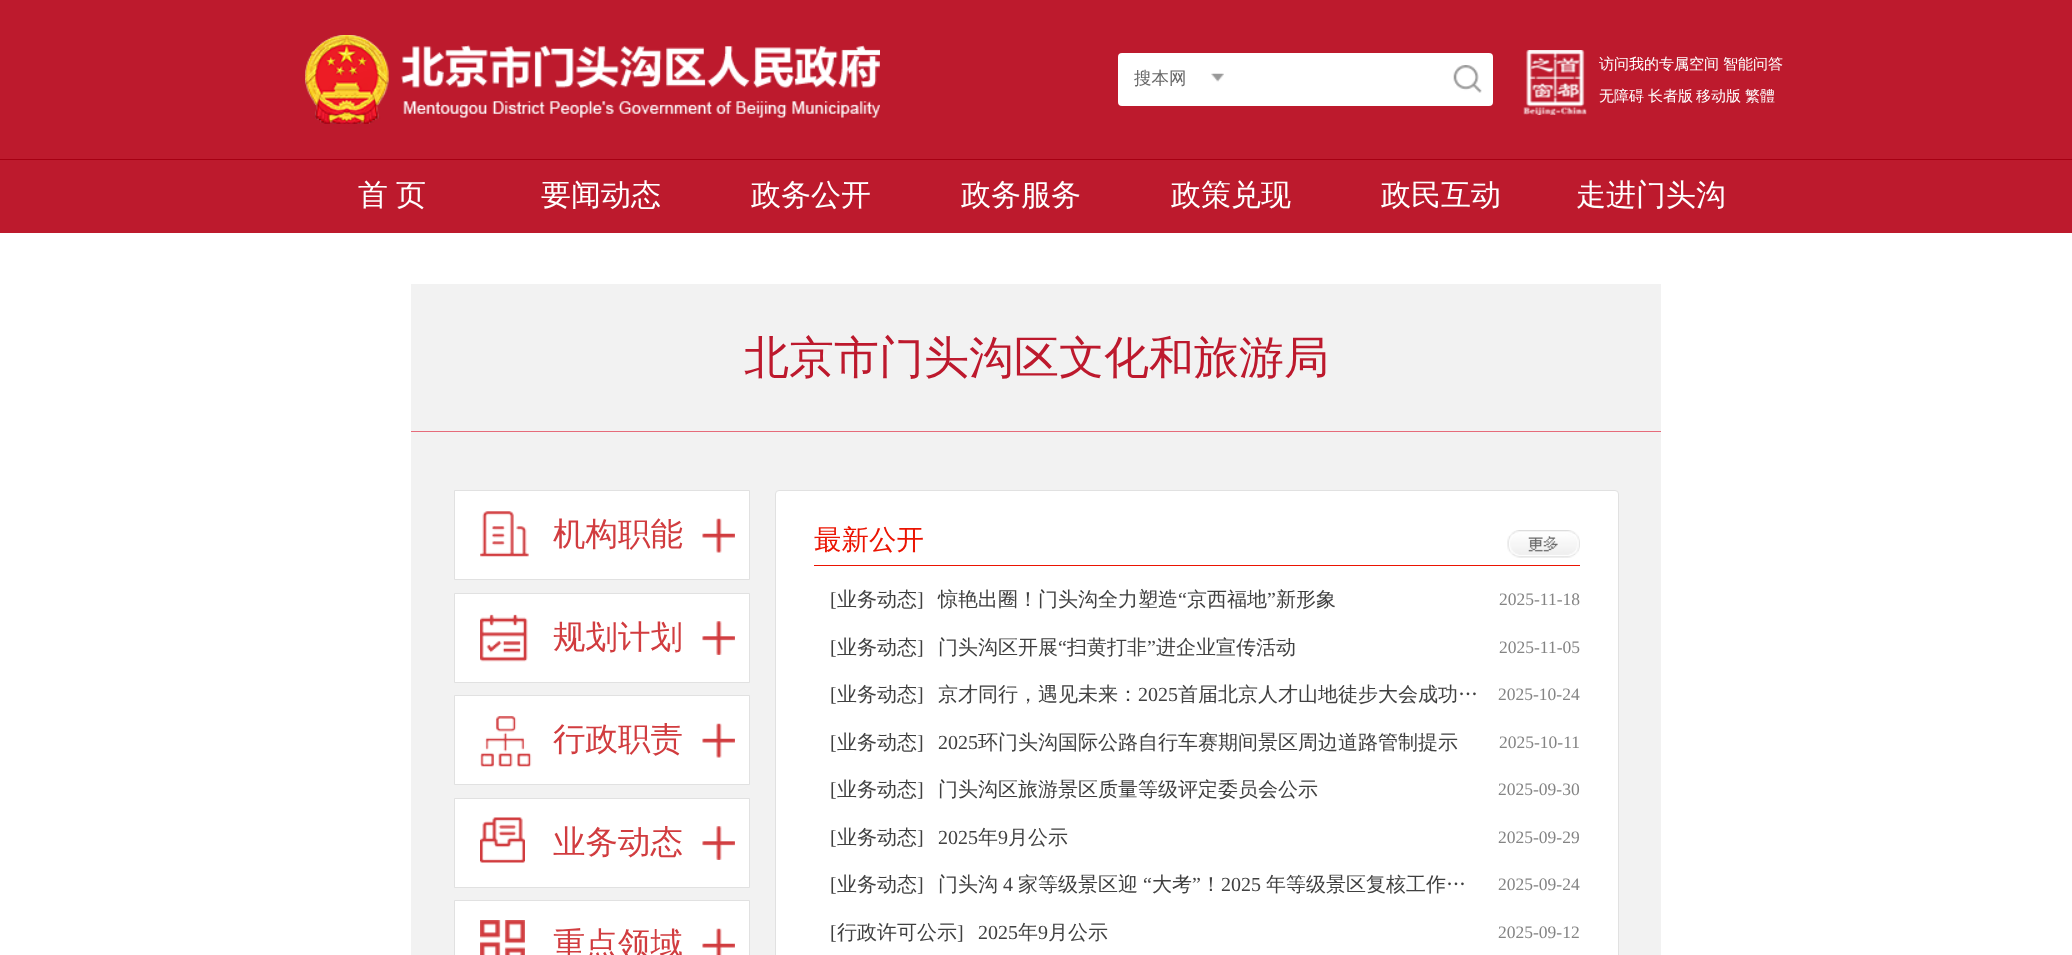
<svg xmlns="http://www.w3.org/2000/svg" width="2072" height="955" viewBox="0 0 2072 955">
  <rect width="100%" height="100%" fill="#fff"/>
  <path d="M0 0h2072v233H0z" fill="#bd1a2d"/>
  <image x="305" y="35" width="575" height="89" href="img/1.png"/>
  <rect x="1118" y="53" width="375" height="53" rx="4" fill="#fff"/>
  <image x="1211" y="73" width="13" height="9" href="img/2.png"/>
  <image x="1453" y="65" width="29" height="28" href="img/3.png"/>
  <image x="1523" y="50" width="64" height="65" href="img/4.png"/>
  <path d="M0 159h2072v1H0z" fill="#a60013"/>
  <path d="M411 284h1250v671H411z" fill="#f2f2f2"/>
  <path d="M411 431h1250v1H411z" fill="#e66b7a"/>
  <path d="M455 491h294v88H455z" fill="#fff"/>
  <image x="480" y="511" width="49" height="46" href="img/5.png"/>
  <path d="M454.5 490.5h295v89H454.5z" fill="none" stroke="#e1e1e1"/>
  <image x="702" y="518" width="33" height="35" href="img/6.png"/>
  <path d="M455 594h294v88H455z" fill="#fff"/>
  <image x="480" y="614" width="48" height="48" href="img/7.png"/>
  <path d="M454.5 593.5h295v89H454.5z" fill="none" stroke="#e1e1e1"/>
  <image x="702" y="621" width="33" height="34" href="img/8.png"/>
  <path d="M455 696h294v88H455z" fill="#fff"/>
  <image x="480" y="716" width="52" height="51" href="img/9.png"/>
  <path d="M454.5 695.5h295v89H454.5z" fill="none" stroke="#e1e1e1"/>
  <image x="702" y="723" width="33" height="35" href="img/6.png"/>
  <path d="M455 799h294v88H455z" fill="#fff"/>
  <image x="480" y="817" width="45" height="46" href="img/10.png"/>
  <path d="M454.5 798.5h295v89H454.5z" fill="none" stroke="#e1e1e1"/>
  <image x="702" y="826" width="33" height="34" href="img/8.png"/>
  <path d="M455 901h294v54H455z" fill="#fff"/>
  <image x="480" y="920" width="45" height="35" href="img/11.png"/>
  <path d="M454.5 900.5h295v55H454.5z" fill="none" stroke="#e1e1e1"/>
  <image x="702" y="928" width="33" height="27" href="img/12.png"/>
  <rect x="775.5" y="490.5" width="843" height="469" rx="3.5" fill="#fff" stroke="#e1e1e1"/>
  <path d="M814 565h766v1H814z" fill="#eb1402"/>
  <image x="1507" y="530" width="73" height="28" href="img/13.png"/>
  <text x="1134" y="84" font-family="WenQuanYi Zen Hei" font-size="17.5" font-weight="500" fill="#666">搜本网</text>
  <g font-family="WenQuanYi Zen Hei" font-size="15" font-weight="500" fill="#fff">
    <text x="1599" y="69">访问我的专属空间</text>
    <text x="1723" y="69">智能问答</text>
    <text x="1599" y="101">无障碍</text>
    <text x="1648" y="101">长者版</text>
    <text x="1696" y="101">移动版</text>
    <text x="1745" y="101">繁體</text>
  </g>
  <g font-family="WenQuanYi Zen Hei" font-size="30" font-weight="500" fill="#fff">
    <text x="358" y="205" word-spacing="-1">首 页</text>
    <text x="541" y="205">要闻动态</text>
    <text x="751" y="205">政务公开</text>
    <text x="961" y="205">政务服务</text>
    <text x="1171" y="205">政策兑现</text>
    <text x="1381" y="205">政民互动</text>
    <text x="1576" y="205">走进门头沟</text>
  </g>
  <text x="744" y="373" font-family="WenQuanYi Zen Hei" font-size="45" font-weight="500" fill="#bd192d">北京市门头沟区文化和旅游局</text>
  <g font-family="WenQuanYi Zen Hei" font-size="32.5" font-weight="500" fill="#d13c3f">
    <text x="553" y="545">机构职能</text>
    <text x="553" y="648">规划计划</text>
    <text x="553" y="750">行政职责</text>
    <text x="553" y="853">业务动态</text>
    <text x="553" y="955">重点领域</text>
  </g>
  <text x="814" y="549" font-family="WenQuanYi Zen Hei" font-size="27.5" font-weight="500" fill="#eb1402">最新公开</text>
  <text x="830" y="606" font-family="Liberation Serif" font-size="20" fill="#404040">[</text>
  <text x="837" y="606" font-family="WenQuanYi Zen Hei" font-size="20" font-weight="500" fill="#404040">业务动态</text>
  <text x="917" y="606" font-family="Liberation Serif" font-size="20" fill="#404040">]</text>
  <text x="938" y="606" font-family="WenQuanYi Zen Hei" font-size="20" font-weight="500" fill="#404040">惊艳出圈！门头沟全力塑造</text>
  <text x="1178" y="606" font-family="Liberation Serif" font-size="20" fill="#404040">“</text>
  <text x="1187" y="606" font-family="WenQuanYi Zen Hei" font-size="20" font-weight="500" fill="#404040">京西福地</text>
  <text x="1267" y="606" font-family="Liberation Serif" font-size="20" fill="#404040">”</text>
  <text x="1276" y="606" font-family="WenQuanYi Zen Hei" font-size="20" font-weight="500" fill="#404040">新形象</text>
  <text x="1499" y="605" font-family="Liberation Serif" font-size="17.5" fill="#848484">2025-11-18</text>
  <text x="830" y="654" font-family="Liberation Serif" font-size="20" fill="#404040">[</text>
  <text x="837" y="654" font-family="WenQuanYi Zen Hei" font-size="20" font-weight="500" fill="#404040">业务动态</text>
  <text x="917" y="654" font-family="Liberation Serif" font-size="20" fill="#404040">]</text>
  <text x="938" y="654" font-family="WenQuanYi Zen Hei" font-size="20" font-weight="500" fill="#404040">门头沟区开展</text>
  <text x="1058" y="654" font-family="Liberation Serif" font-size="20" fill="#404040">“</text>
  <text x="1067" y="654" font-family="WenQuanYi Zen Hei" font-size="20" font-weight="500" fill="#404040">扫黄打非</text>
  <text x="1147" y="654" font-family="Liberation Serif" font-size="20" fill="#404040">”</text>
  <text x="1156" y="654" font-family="WenQuanYi Zen Hei" font-size="20" font-weight="500" fill="#404040">进企业宣传活动</text>
  <text x="1499" y="653" font-family="Liberation Serif" font-size="17.5" fill="#848484">2025-11-05</text>
  <text x="830" y="701" font-family="Liberation Serif" font-size="20" fill="#404040">[</text>
  <text x="837" y="701" font-family="WenQuanYi Zen Hei" font-size="20" font-weight="500" fill="#404040">业务动态</text>
  <text x="917" y="701" font-family="Liberation Serif" font-size="20" fill="#404040">]</text>
  <text x="938" y="701" font-family="WenQuanYi Zen Hei" font-size="20" font-weight="500" fill="#404040">京才同行，遇见未来：</text>
  <text x="1138" y="701" font-family="Liberation Serif" font-size="20" fill="#404040">2025</text>
  <text x="1178" y="701" font-family="WenQuanYi Zen Hei" font-size="20" font-weight="500" fill="#404040">首届北京人才山地徒步大会成功…</text>
  <text x="1498" y="700" font-family="Liberation Serif" font-size="17.5" fill="#848484">2025-10-24</text>
  <text x="830" y="749" font-family="Liberation Serif" font-size="20" fill="#404040">[</text>
  <text x="837" y="749" font-family="WenQuanYi Zen Hei" font-size="20" font-weight="500" fill="#404040">业务动态</text>
  <g font-family="Liberation Serif" font-size="20" fill="#404040">
    <text x="917" y="749">]</text>
    <text x="938" y="749">2025</text>
  </g>
  <text x="978" y="749" font-family="WenQuanYi Zen Hei" font-size="20" font-weight="500" fill="#404040">环门头沟国际公路自行车赛期间景区周边道路管制提示</text>
  <text x="1499" y="748" font-family="Liberation Serif" font-size="17.5" fill="#848484">2025-10-11</text>
  <text x="830" y="796" font-family="Liberation Serif" font-size="20" fill="#404040">[</text>
  <text x="837" y="796" font-family="WenQuanYi Zen Hei" font-size="20" font-weight="500" fill="#404040">业务动态</text>
  <text x="917" y="796" font-family="Liberation Serif" font-size="20" fill="#404040">]</text>
  <text x="938" y="796" font-family="WenQuanYi Zen Hei" font-size="20" font-weight="500" fill="#404040">门头沟区旅游景区质量等级评定委员会公示</text>
  <text x="1498" y="795" font-family="Liberation Serif" font-size="17.5" fill="#848484">2025-09-30</text>
  <text x="830" y="844" font-family="Liberation Serif" font-size="20" fill="#404040">[</text>
  <text x="837" y="844" font-family="WenQuanYi Zen Hei" font-size="20" font-weight="500" fill="#404040">业务动态</text>
  <g font-family="Liberation Serif" font-size="20" fill="#404040">
    <text x="917" y="844">]</text>
    <text x="938" y="844">2025</text>
  </g>
  <text x="978" y="844" font-family="WenQuanYi Zen Hei" font-size="20" font-weight="500" fill="#404040">年</text>
  <text x="998" y="844" font-family="Liberation Serif" font-size="20" fill="#404040">9</text>
  <text x="1008" y="844" font-family="WenQuanYi Zen Hei" font-size="20" font-weight="500" fill="#404040">月公示</text>
  <text x="1498" y="843" font-family="Liberation Serif" font-size="17.5" fill="#848484">2025-09-29</text>
  <text x="830" y="891" font-family="Liberation Serif" font-size="20" fill="#404040">[</text>
  <text x="837" y="891" font-family="WenQuanYi Zen Hei" font-size="20" font-weight="500" fill="#404040">业务动态</text>
  <text x="917" y="891" font-family="Liberation Serif" font-size="20" fill="#404040">]</text>
  <text x="938" y="891" font-family="WenQuanYi Zen Hei" font-size="20" font-weight="500" fill="#404040">门头沟</text>
  <text x="1003" y="891" font-family="Liberation Serif" font-size="20" fill="#404040">4</text>
  <text x="1018" y="891" font-family="WenQuanYi Zen Hei" font-size="20" font-weight="500" fill="#404040">家等级景区迎</text>
  <text x="1143" y="891" font-family="Liberation Serif" font-size="20" fill="#404040">“</text>
  <text x="1152" y="891" font-family="WenQuanYi Zen Hei" font-size="20" font-weight="500" fill="#404040">大考</text>
  <text x="1192" y="891" font-family="Liberation Serif" font-size="20" fill="#404040">”</text>
  <text x="1201" y="891" font-family="WenQuanYi Zen Hei" font-size="20" font-weight="500" fill="#404040">！</text>
  <text x="1221" y="891" font-family="Liberation Serif" font-size="20" fill="#404040">2025</text>
  <text x="1266" y="891" font-family="WenQuanYi Zen Hei" font-size="20" font-weight="500" fill="#404040">年等级景区复核工作…</text>
  <text x="1498" y="890" font-family="Liberation Serif" font-size="17.5" fill="#848484">2025-09-24</text>
  <text x="830" y="939" font-family="Liberation Serif" font-size="20" fill="#404040">[</text>
  <text x="837" y="939" font-family="WenQuanYi Zen Hei" font-size="20" font-weight="500" fill="#404040">行政许可公示</text>
  <g font-family="Liberation Serif" font-size="20" fill="#404040">
    <text x="957" y="939">]</text>
    <text x="978" y="939">2025</text>
  </g>
  <text x="1018" y="939" font-family="WenQuanYi Zen Hei" font-size="20" font-weight="500" fill="#404040">年</text>
  <text x="1038" y="939" font-family="Liberation Serif" font-size="20" fill="#404040">9</text>
  <text x="1048" y="939" font-family="WenQuanYi Zen Hei" font-size="20" font-weight="500" fill="#404040">月公示</text>
  <text x="1498" y="938" font-family="Liberation Serif" font-size="17.5" fill="#848484">2025-09-12</text>
</svg>
